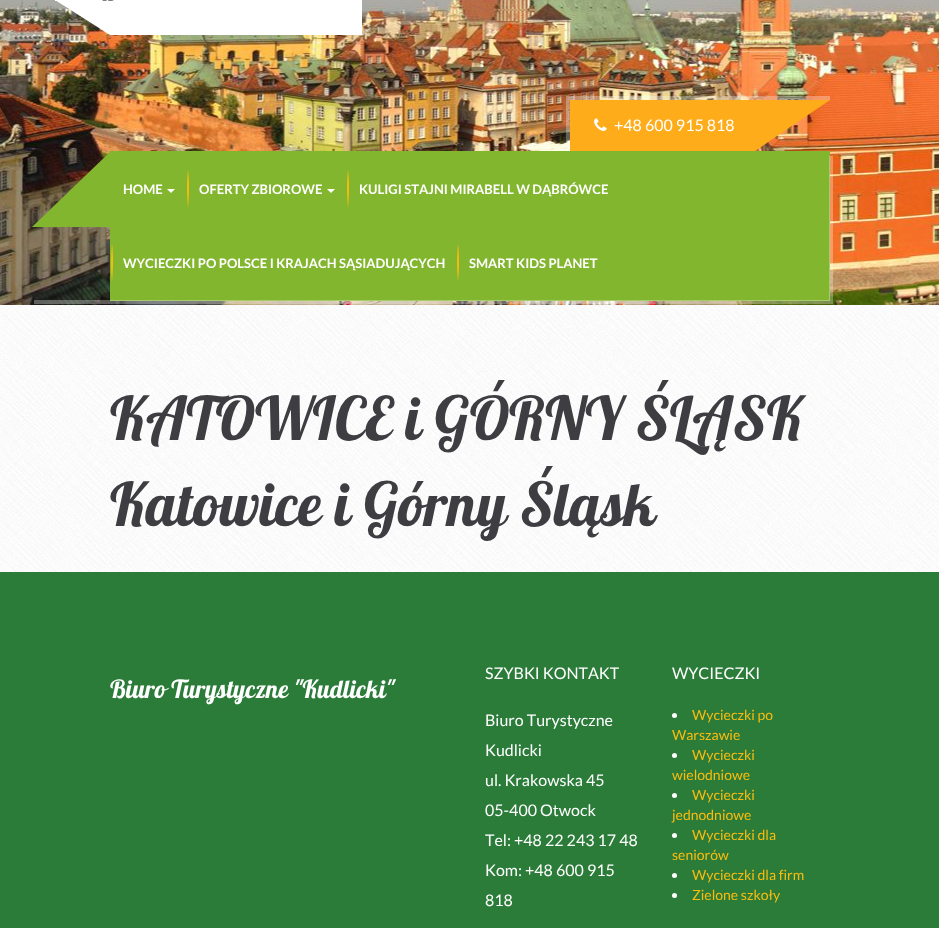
<svg xmlns="http://www.w3.org/2000/svg" width="939" height="928" viewBox="0 0 939 928">
  <style>*{font-kerning:none!important;font-variant-ligatures:none!important}</style>
  <rect width="100%" height="100%" fill="#fff"/>
  <image x="0" y="305" width="939" height="267" href="img/1.png"/>
  <image x="0" y="0" width="939" height="305" href="img/2.png"/>
  <path d="M110 0V35L55 0Z" fill="#fff"/>
  <path d="M55 0h2v1H55z" fill="#fff"/>
  <path d="M110 0h252v35H110z" fill="#fff"/>
  <image x="102" y="0" width="12" height="1" href="img/3.png"/>
  <path d="M566 96h4v55H566z" fill="#ffffff4d"/>
  <path d="M570 96h185v4H570z" fill="#ffffff4d"/>
  <path d="M570 100h185v51H570z" fill="#ffac1b"/>
  <path d="M755 96h75v4H755z" fill="#ffffff4d"/>
  <image x="594" y="118" width="13" height="13" href="img/4.png"/>
  <path d="M755 100H830L755 151Z" fill="#ffac1b"/>
  <path d="M110 151h720v150H110z" fill="#83b62f"/>
  <path d="M115 300V304H833V156H829V300Z" fill="#ffffff4d"/>
  <path d="M110 227H32L110 152Z" fill="#83b62f"/>
  <path d="M167 189H175L171 193Z" fill="#fff"/>
  <image x="187" y="171" width="2" height="36" href="img/5.png"/>
  <path d="M327 189H335L331 193Z" fill="#fff"/>
  <image x="347" y="171" width="2" height="36" href="img/5.png"/>
  <image x="111" y="245" width="2" height="36" href="img/5.png"/>
  <image x="457" y="245" width="2" height="36" href="img/5.png"/>
  <path d="M34 300h81v4H34z" fill="#ffffff4d"/>
  <path d="M0 572h939v356H0z" fill="#2b7c39"/>
  <circle cx="674.5" cy="715.5" r="2.5" fill="#fff"/>
  <circle cx="674.5" cy="755.5" r="2.5" fill="#fff"/>
  <circle cx="674.5" cy="795.5" r="2.5" fill="#fff"/>
  <circle cx="674.5" cy="835.5" r="2.5" fill="#fff"/>
  <circle cx="674.5" cy="875.5" r="2.5" fill="#fff"/>
  <circle cx="674.5" cy="895.5" r="2.5" fill="#fff"/>
  <text x="614" y="131" font-family="Lato" font-size="16" fill="#fff">+48 600 915 818</text>
  <g font-family="Lato" font-size="13" font-weight="bold" fill="#fff">
    <text x="123" y="194">HOME</text>
    <text x="199" y="194">OFERTY ZBIOROWE</text>
    <text x="359" y="194">KULIGI STAJNI MIRABELL W DĄBRÓWCE</text>
    <text x="123" y="268">WYCIECZKI PO POLSCE I KRAJACH SĄSIADUJĄCYCH</text>
    <text x="469" y="268">SMART KIDS PLANET</text>
  </g>
  <g font-family="Lobster" font-size="60" fill="#3e3e42">
    <text x="110" y="440">KATOWICE i GÓRNY ŚLĄSK</text>
    <text x="110" y="526">Katowice i Górny Śląsk</text>
  </g>
  <text x="110" y="698" font-family="Lobster" font-size="25" fill="#fff">Biuro Turystyczne "Kudlicki"</text>
  <g font-family="Lato" font-size="16" fill="#fff">
    <text x="485" y="679">SZYBKI KONTAKT</text>
    <text x="485" y="726">Biuro Turystyczne</text>
    <text x="485" y="756">Kudlicki</text>
    <text x="485" y="786">ul. Krakowska 45</text>
    <text x="485" y="816">05-400 Otwock</text>
    <text x="485" y="846">Tel: +48 22 243 17 48</text>
    <text x="485" y="876">Kom: +48 600 915</text>
    <text x="485" y="906">818</text>
    <text x="672" y="679">WYCIECZKI</text>
  </g>
  <g font-family="Lato" font-size="14" fill="#fdbc0d">
    <text x="692" y="720">Wycieczki po</text>
    <text x="672" y="740">Warszawie</text>
    <text x="692" y="760">Wycieczki</text>
    <text x="672" y="780">wielodniowe</text>
    <text x="692" y="800">Wycieczki</text>
    <text x="672" y="820">jednodniowe</text>
    <text x="692" y="840">Wycieczki dla</text>
    <text x="672" y="860">seniorów</text>
    <text x="692" y="880">Wycieczki dla firm</text>
    <text x="692" y="900">Zielone szkoły</text>
  </g>
</svg>
